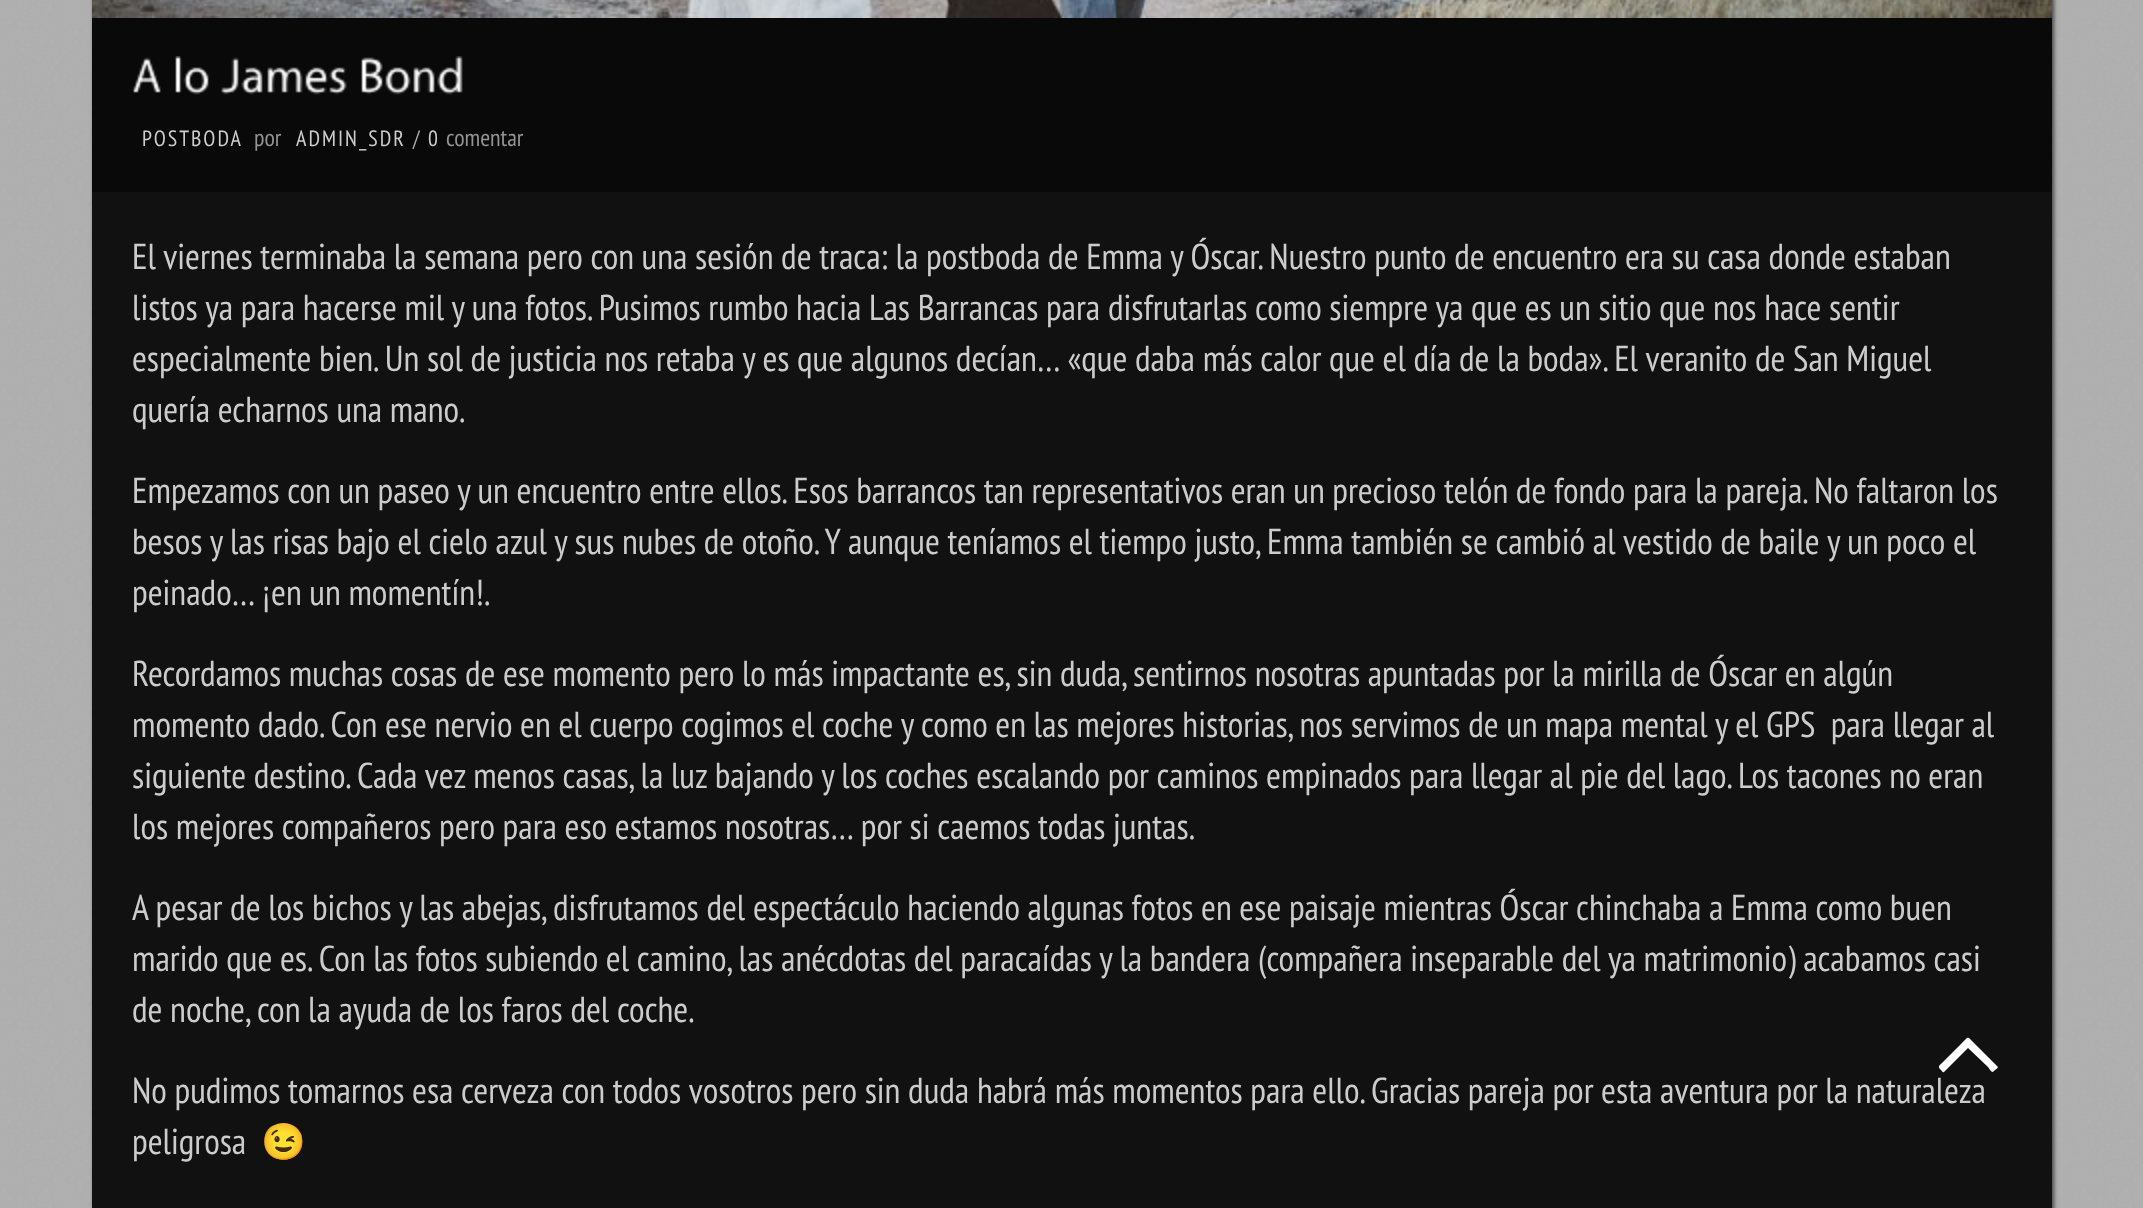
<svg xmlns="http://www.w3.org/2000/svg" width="2143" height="1208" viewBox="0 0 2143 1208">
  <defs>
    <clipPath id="clip1"><path d="M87 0H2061V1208H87ZM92-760H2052V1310H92Z" clip-rule="evenodd"/></clipPath>
  </defs>
  <rect width="100%" height="100%" fill="#fff"/>
  <path d="M92 192h1960v1016H92z" fill="#191919"/>
  <image x="0" y="0" width="2143" height="1208" href="img/1.png"/>
  <g clip-path="url(#clip1)">
    <path d="M94 -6h1960v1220H94z" fill="#2b2b2bcc" filter="blur(2px)"/>
  </g>
  <image x="92" y="0" width="1960" height="18" href="img/2.png"/>
  <path d="M92 18h1960v174H92z" fill="#090909"/>
  <image x="132" y="57" width="29" height="36" href="img/3.png"/>
  <image x="175" y="56" width="34" height="39" href="img/4.png"/>
  <image x="221" y="57" width="126" height="38" href="img/5.png"/>
  <image x="361" y="56" width="102" height="39" href="img/6.png"/>
  <path d="M1997 1066C1999 1067 1997 1069 1995 1070C1992 1074 1991 1071 1988 1067L1968 1048L1944 1072C1943 1073 1942 1071 1941 1070C1937 1066 1939 1066 1944 1061L1962 1043C1969 1036 1967 1036 1974 1043Z" fill="#fff"/>
  <text x="142" y="146" font-family="PT Sans Narrow" font-size="22" letter-spacing="2" fill="#ccc">POSTBODA</text>
  <text x="254" y="146" font-family="PT Sans Narrow" font-size="24" fill="#949494">por</text>
  <text x="296" y="146" font-family="PT Sans Narrow" font-size="22" letter-spacing="2" fill="#ccc">ADMIN_SDR</text>
  <text x="413" y="146" font-family="PT Sans Narrow" font-size="22" letter-spacing="2" fill="#b5b5b5">/</text>
  <text x="428" y="146" font-family="PT Sans Narrow" font-size="22" letter-spacing="2" fill="#ccc">0</text>
  <text x="446" y="146" font-family="PT Sans Narrow" font-size="24" fill="#949494">comentar</text>
  <g font-family="PT Sans Narrow" font-size="36" fill="#ccc">
    <text x="132" y="269">El viernes terminaba la semana pero con una sesión de traca: la postboda de Emma y Óscar. Nuestro punto de encuentro era su casa donde estaban</text>
    <text x="132" y="320">listos ya para hacerse mil y una fotos. Pusimos rumbo hacia Las Barrancas para disfrutarlas como siempre ya que es un sitio que nos hace sentir</text>
    <text x="132" y="371">especialmente bien. Un sol de justicia nos retaba y es que algunos decían… «que daba más calor que el día de la boda». El veranito de San Miguel</text>
    <text x="132" y="422">quería echarnos una mano.</text>
    <text x="132" y="503">Empezamos con un paseo y un encuentro entre ellos. Esos barrancos tan representativos eran un precioso telón de fondo para la pareja. No faltaron los</text>
    <text x="132" y="554">besos y las risas bajo el cielo azul y sus nubes de otoño. Y aunque teníamos el tiempo justo, Emma también se cambió al vestido de baile y un poco el</text>
    <text x="132" y="605">peinado… ¡en un momentín!.</text>
    <text x="132" y="686">Recordamos muchas cosas de ese momento pero lo más impactante es, sin duda, sentirnos nosotras apuntadas por la mirilla de Óscar en algún</text>
    <text x="132" y="737" xml:space="preserve">momento dado. Con ese nervio en el cuerpo cogimos el coche y como en las mejores historias, nos servimos de un mapa mental y el GPS  para llegar al</text>
    <text x="132" y="788">siguiente destino. Cada vez menos casas, la luz bajando y los coches escalando por caminos empinados para llegar al pie del lago. Los tacones no eran</text>
    <text x="132" y="839">los mejores compañeros pero para eso estamos nosotras… por si caemos todas juntas.</text>
    <text x="132" y="920">A pesar de los bichos y las abejas, disfrutamos del espectáculo haciendo algunas fotos en ese paisaje mientras Óscar chinchaba a Emma como buen</text>
    <text x="132" y="971">marido que es. Con las fotos subiendo el camino, las anécdotas del paracaídas y la bandera (compañera inseparable del ya matrimonio) acabamos casi</text>
    <text x="132" y="1022">de noche, con la ayuda de los faros del coche.</text>
    <text x="132" y="1103">No pudimos tomarnos esa cerveza con todos vosotros pero sin duda habrá más momentos para ello. Gracias pareja por esta aventura por la naturaleza</text>
    <text x="132" y="1154">peligrosa</text>
  </g>
  <text x="261" y="1154" font-family="Noto Color Emoji" font-size="36" fill="#ccc">😉</text>
</svg>
